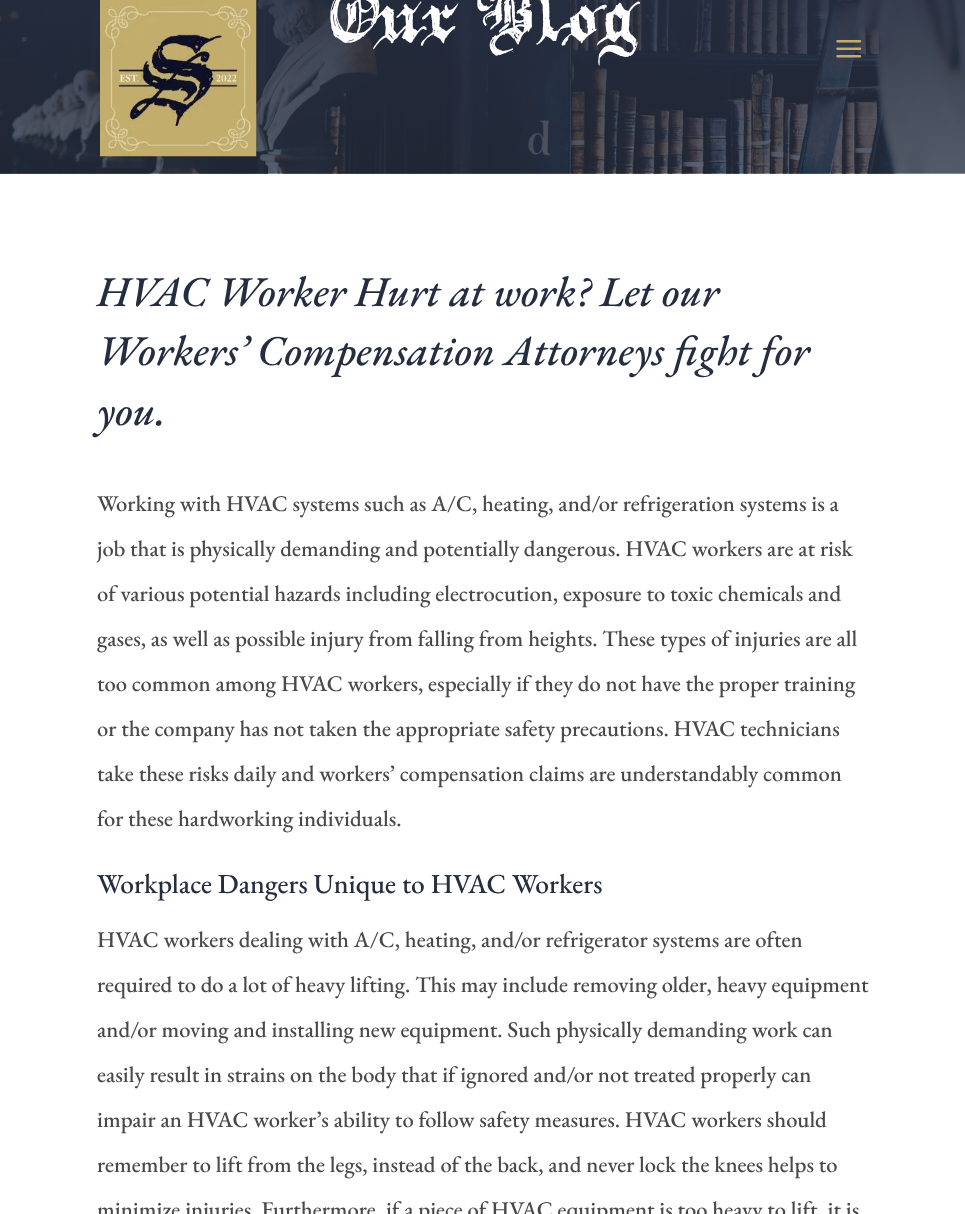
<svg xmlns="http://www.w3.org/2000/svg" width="965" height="1214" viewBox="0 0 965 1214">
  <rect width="100%" height="100%" fill="#fff"/>
  <image x="0" y="0" width="965" height="174" href="img/1.png"/>
  <image x="100" y="0" width="157" height="157" href="img/2.png"/>
  <image x="836" y="40" width="26" height="18" href="img/3.png"/>
  <text x="330" y="41" font-family="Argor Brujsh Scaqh" font-size="56.25" font-weight="500" fill="#fff">Our Blog</text>
  <g font-family="EB Garamond" font-size="42.5" font-weight="500" font-style="italic" fill="#252d40">
    <text x="97" y="306">HVAC Worker Hurt at work? Let our</text>
    <text x="97" y="365">Workers’ Compensation Attorneys fight for</text>
    <text x="97" y="425">you.</text>
  </g>
  <g font-family="EB Garamond" font-size="22.5" font-weight="500" fill="#494949">
    <text x="97" y="511">Working with HVAC systems such as A/C, heating, and/or refrigeration systems is a</text>
    <text x="97" y="556">job that is physically demanding and potentially dangerous. HVAC workers are at risk</text>
    <text x="97" y="601">of various potential hazards including electrocution, exposure to toxic chemicals and</text>
    <text x="97" y="646">gases, as well as possible injury from falling from heights. These types of injuries are all</text>
    <text x="97" y="691">too common among HVAC workers, especially if they do not have the proper training</text>
    <text x="97" y="736">or the company has not taken the appropriate safety precautions. HVAC technicians</text>
    <text x="97" y="781">take these risks daily and workers’ compensation claims are understandably common</text>
    <text x="97" y="826">for these hardworking individuals.</text>
  </g>
  <text x="97" y="893" font-family="EB Garamond" font-size="27.5" font-weight="500" fill="#252d40">Workplace Dangers Unique to HVAC Workers</text>
  <g font-family="EB Garamond" font-size="22.5" font-weight="500" fill="#494949">
    <text x="97" y="947">HVAC workers dealing with A/C, heating, and/or refrigerator systems are often</text>
    <text x="97" y="992">required to do a lot of heavy lifting. This may include removing older, heavy equipment</text>
    <text x="97" y="1037">and/or moving and installing new equipment. Such physically demanding work can</text>
    <text x="97" y="1082">easily result in strains on the body that if ignored and/or not treated properly can</text>
    <text x="97" y="1127">impair an HVAC worker’s ability to follow safety measures. HVAC workers should</text>
    <text x="97" y="1172">remember to lift from the legs, instead of the back, and never lock the knees helps to</text>
    <text x="97" y="1217">minimize injuries. Furthermore, if a piece of HVAC equipment is too heavy to lift, it is</text>
  </g>
</svg>
